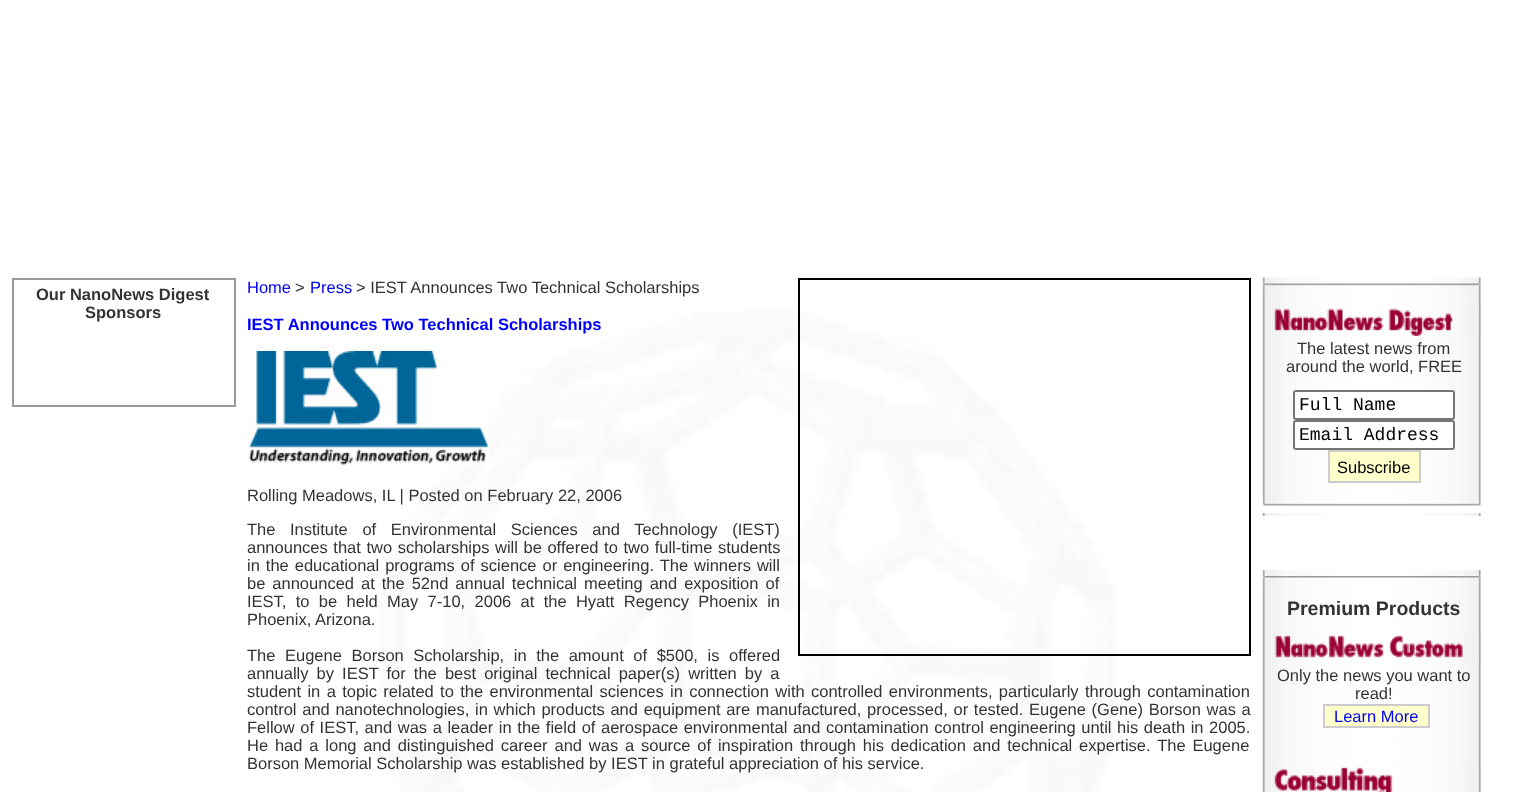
<svg xmlns="http://www.w3.org/2000/svg" width="1518" height="792" viewBox="0 0 1518 792">
  <rect width="100%" height="100%" fill="#fff"/>
  <path d="M13 279h222v127H13z" fill="none" stroke="#999" stroke-width="2"/>
  <image x="378" y="309" width="738" height="483" href="img/1.png"/>
  <path d="M799 279h451v376H799z" fill="none" stroke="#000" stroke-width="2"/>
  <image x="248" y="351" width="241" height="114" href="img/2.png"/>
  <image x="1262" y="277" width="219" height="239" href="img/3.png"/>
  <image x="1262" y="283" width="219" height="9" href="img/4.png"/>
  <image x="1274" y="305" width="207" height="31" href="img/5.png"/>
  <rect x="1294" y="391" width="160" height="28" rx="2" fill="#fff" stroke="#767676" stroke-width="2"/>
  <rect x="1294" y="421" width="160" height="28" rx="2" fill="#fff" stroke="#767676" stroke-width="2"/>
  <path d="M1329 451h91v31H1329z" fill="#ffc" stroke="#ccc" stroke-width="2"/>
  <image x="1262" y="498" width="219" height="15" href="img/6.png"/>
  <image x="1262" y="570" width="219" height="222" href="img/7.png"/>
  <image x="1262" y="576" width="219" height="9" href="img/8.png"/>
  <image x="1274" y="632" width="207" height="31" href="img/9.png"/>
  <path d="M1324 705h105v22H1324z" fill="#ffc" stroke="#ccc" stroke-width="2"/>
  <image x="1274" y="765" width="207" height="27" href="img/10.png"/>
  <g font-family="Liberation Sans" font-size="16.5" font-weight="bold" fill="#333">
    <text x="36" y="300">Our NanoNews Digest</text>
    <text x="85" y="318">Sponsors</text>
  </g>
  <text x="247" y="293" font-family="Liberation Sans" font-size="16.5" fill="#00e">Home</text>
  <text x="295" y="293" font-family="Liberation Sans" font-size="16.5" fill="#333">&gt;</text>
  <text x="310" y="293" font-family="Liberation Sans" font-size="16.5" fill="#00e">Press</text>
  <text x="356" y="293" font-family="Liberation Sans" font-size="16.5" fill="#333">&gt; IEST Announces Two Technical Scholarships</text>
  <text x="247" y="330" font-family="Liberation Sans" font-size="16.5" font-weight="bold" fill="#00f">IEST Announces Two Technical Scholarships</text>
  <g font-family="Liberation Sans" font-size="16.5" fill="#333">
    <text x="247" y="501">Rolling Meadows, IL | Posted on February 22, 2006</text>
    <text x="247" y="535" word-spacing="10">The Institute of Environmental Sciences and Technology (IEST)</text>
    <text x="247" y="553" word-spacing="1">announces that two scholarships will be offered to two full-time students</text>
    <text x="247" y="571" word-spacing="1.4">in the educational programs of science or engineering. The winners will</text>
    <text x="247" y="589" word-spacing="2.4">be announced at the 52nd annual technical meeting and exposition of</text>
    <text x="247" y="607" word-spacing="4.75">IEST, to be held May 7-10, 2006 at the Hyatt Regency Phoenix in</text>
    <text x="247" y="625">Phoenix, Arizona.</text>
    <text x="247" y="661" word-spacing="5">The Eugene Borson Scholarship, in the amount of $500, is offered</text>
    <text x="247" y="679" word-spacing="3.5">annually by IEST for the best original technical paper(s) written by a</text>
    <text x="247" y="697" word-spacing="1.75">student in a topic related to the environmental sciences in connection with controlled environments, particularly through contamination</text>
    <text x="247" y="715" word-spacing="1.1">control and nanotechnologies, in which products and equipment are manufactured, processed, or tested. Eugene (Gene) Borson was a</text>
    <text x="247" y="733" word-spacing="1">Fellow of IEST, and was a leader in the field of aerospace environmental and contamination control engineering until his death in 2005.</text>
    <text x="247" y="751" word-spacing="2.25">He had a long and distinguished career and was a source of inspiration through his dedication and technical expertise. The Eugene</text>
    <text x="247" y="769">Borson Memorial Scholarship was established by IEST in grateful appreciation of his service.</text>
    <text x="1297" y="354">The latest news from</text>
    <text x="1286" y="372">around the world, FREE</text>
  </g>
  <g font-family="Liberation Mono" font-size="18" fill="#000">
    <text x="1299" y="410">Full Name</text>
    <text x="1299" y="440">Email Address</text>
  </g>
  <text x="1337" y="473" font-family="Liberation Sans" font-size="16.5" fill="#000">Subscribe</text>
  <text x="1287" y="615" font-family="Liberation Sans" font-size="19.5" font-weight="bold" fill="#333">Premium Products</text>
  <g font-family="Liberation Sans" font-size="16.5" fill="#333">
    <text x="1277" y="681">Only the news you want to</text>
    <text x="1355" y="699">read!</text>
  </g>
  <text x="1334" y="722" font-family="Liberation Sans" font-size="16.5" fill="#00e">Learn More</text>
</svg>
